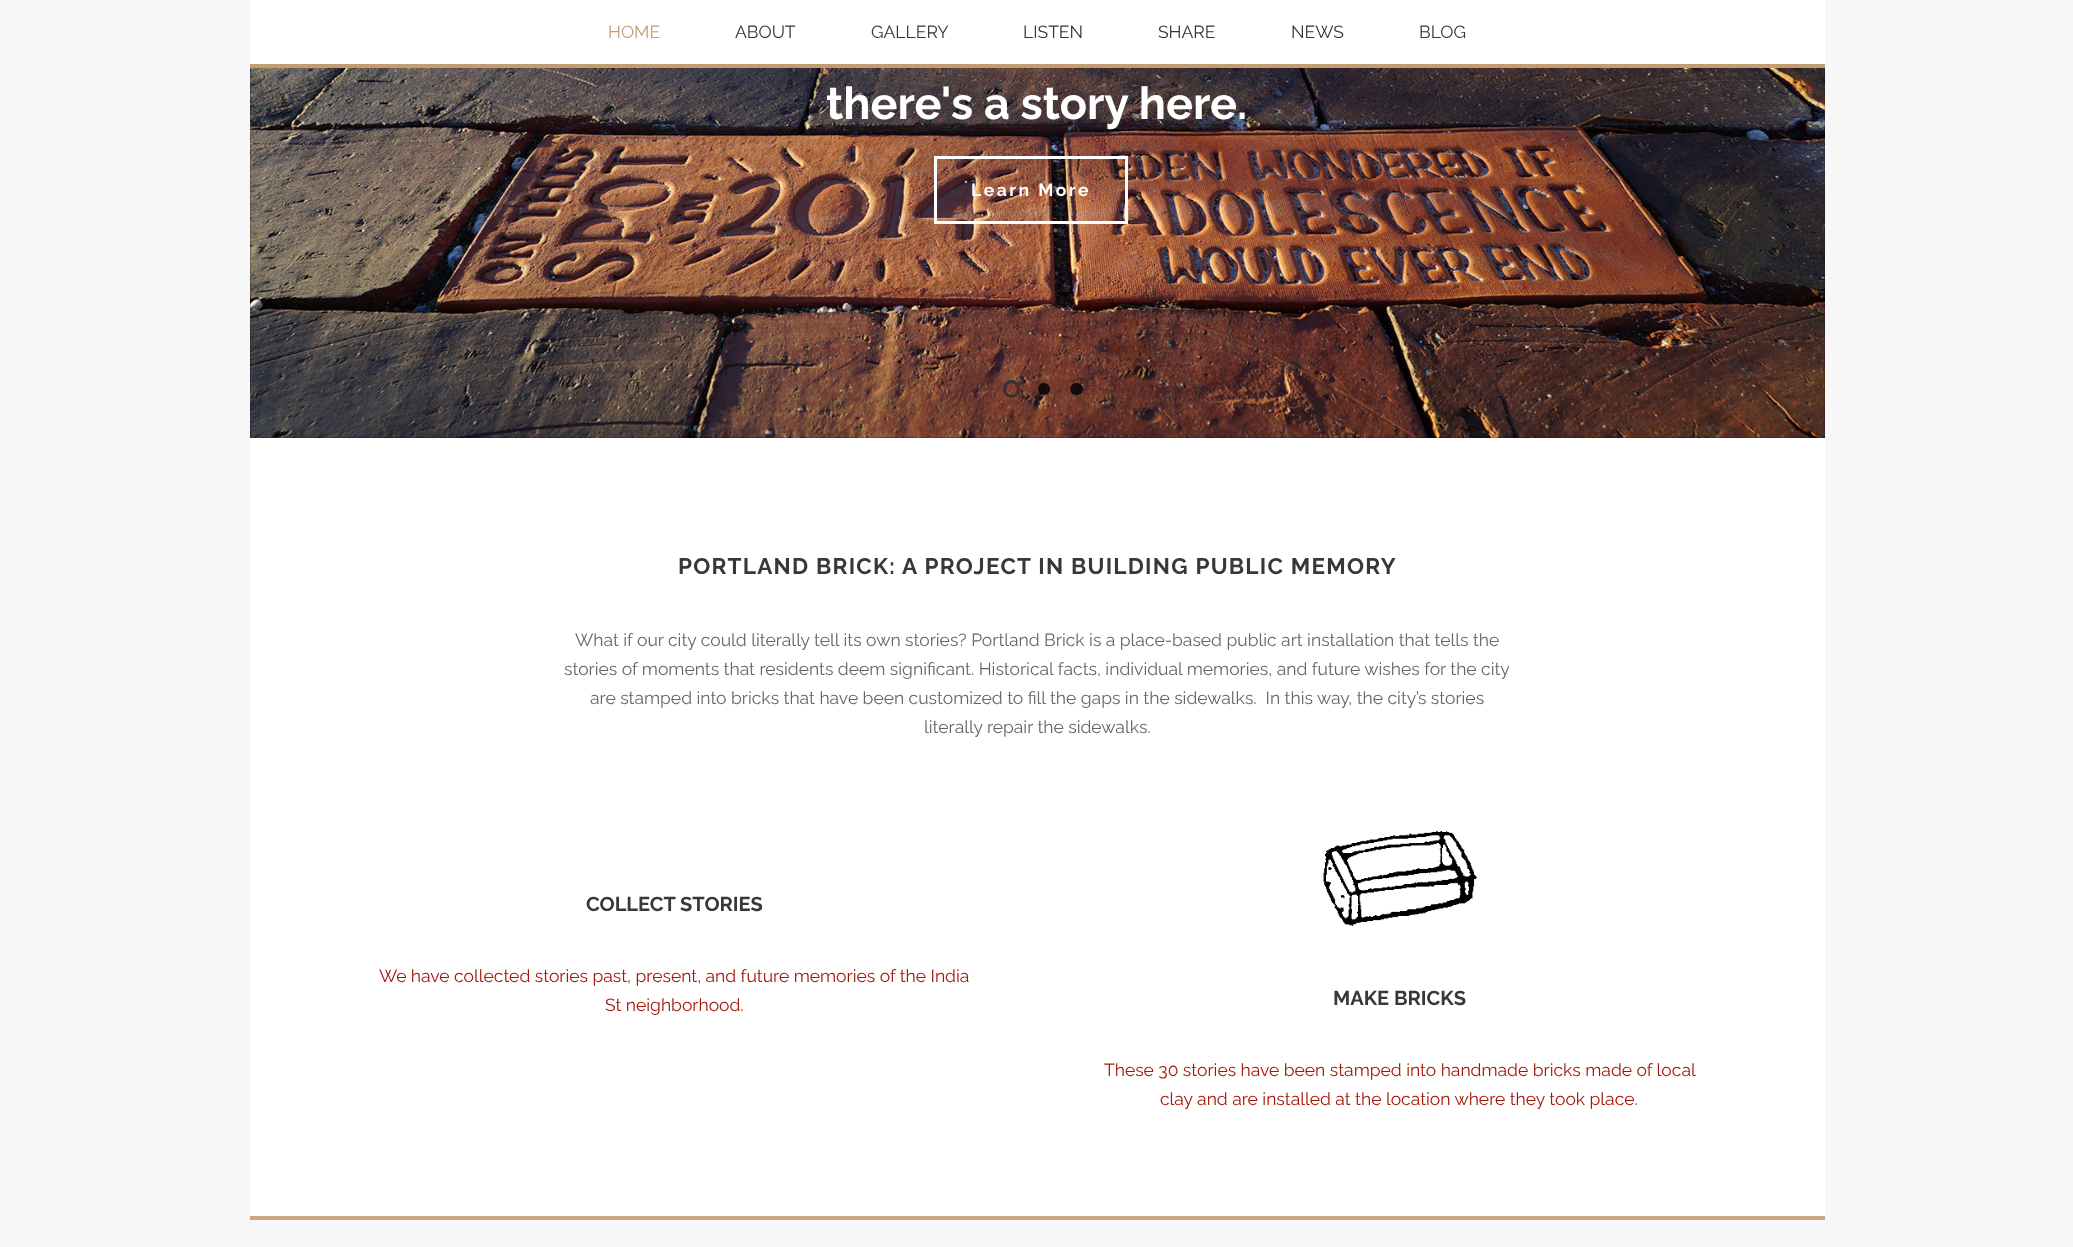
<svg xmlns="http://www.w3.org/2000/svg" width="2073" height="1247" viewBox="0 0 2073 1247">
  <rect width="100%" height="100%" fill="#f7f7f7"/>
  <path d="M250 0h1575v64H250z" fill="#fff"/>
  <path d="M250 64h1575v4H250z" fill="#c59c71"/>
  <path d="M250 438h1575v778H250z" fill="#fff"/>
  <path d="M250 68h1575v370H250z" fill="#000"/>
  <image x="250" y="68" width="1575" height="370" href="img/1.png"/>
  <path d="M935.5 157.5h191v65H935.5z" fill="none" stroke="#fff" stroke-width="3"/>
  <rect x="1004.5" y="381.5" width="14" height="15" rx="7" fill="none" stroke="#333" stroke-width="3"/>
  <circle cx="1044" cy="389" r="6" fill="#000000cc"/>
  <rect x="1070" y="383" width="13" height="12" rx="6" fill="#000000cc"/>
  <image x="1323" y="831" width="154" height="95" href="img/2.png"/>
  <path d="M250 1216h1575v4H250z" fill="#cba67f"/>
  <text x="608" y="38" font-family="Raleway" font-size="17.5" fill="#c59c71">HOME</text>
  <g font-family="Raleway" font-size="17.5" fill="#333">
    <text x="735" y="38">ABOUT</text>
    <text x="871" y="38">GALLERY</text>
    <text x="1023" y="38">LISTEN</text>
    <text x="1158" y="38">SHARE</text>
    <text x="1291" y="38">NEWS</text>
    <text x="1419" y="38">BLOG</text>
  </g>
  <text x="826" y="119" font-family="Raleway" font-size="45" font-weight="bold" fill="#fff">there's a story here.</text>
  <text x="971" y="196" font-family="Raleway" font-size="17.5" font-weight="bold" letter-spacing="2.5" fill="#fff">Learn More</text>
  <text x="678" y="574" font-family="Raleway" font-size="22.5" font-weight="bold" letter-spacing="1.25" fill="#393836">PORTLAND BRICK: A PROJECT IN BUILDING PUBLIC MEMORY</text>
  <g font-family="Raleway" font-size="17.5" fill="#666">
    <text x="575" y="646">What if our city could literally tell its own stories? Portland Brick is a place-based public art installation that tells the</text>
    <text x="564" y="675">stories of moments that residents deem significant. Historical facts, individual memories, and future wishes for the city</text>
    <text x="590" y="704" xml:space="preserve">are stamped into bricks that have been customized to fill the gaps in the sidewalks.  In this way, the city’s stories</text>
    <text x="924" y="733">literally repair the sidewalks.</text>
  </g>
  <text x="586" y="911" font-family="Raleway" font-size="20" font-weight="bold" fill="#393836">COLLECT STORIES</text>
  <g font-family="Raleway" font-size="17.5" fill="#a31708">
    <text x="379" y="982">We have collected stories past, present, and future memories of the India</text>
    <text x="605" y="1011">St neighborhood.</text>
  </g>
  <text x="1333" y="1005" font-family="Raleway" font-size="20" font-weight="bold" fill="#393836">MAKE BRICKS</text>
  <g font-family="Raleway" font-size="17.5" fill="#a31708">
    <text x="1104" y="1076">These 30 stories have been stamped into handmade bricks made of local</text>
    <text x="1160" y="1105">clay and are installed at the location where they took place.</text>
  </g>
</svg>
